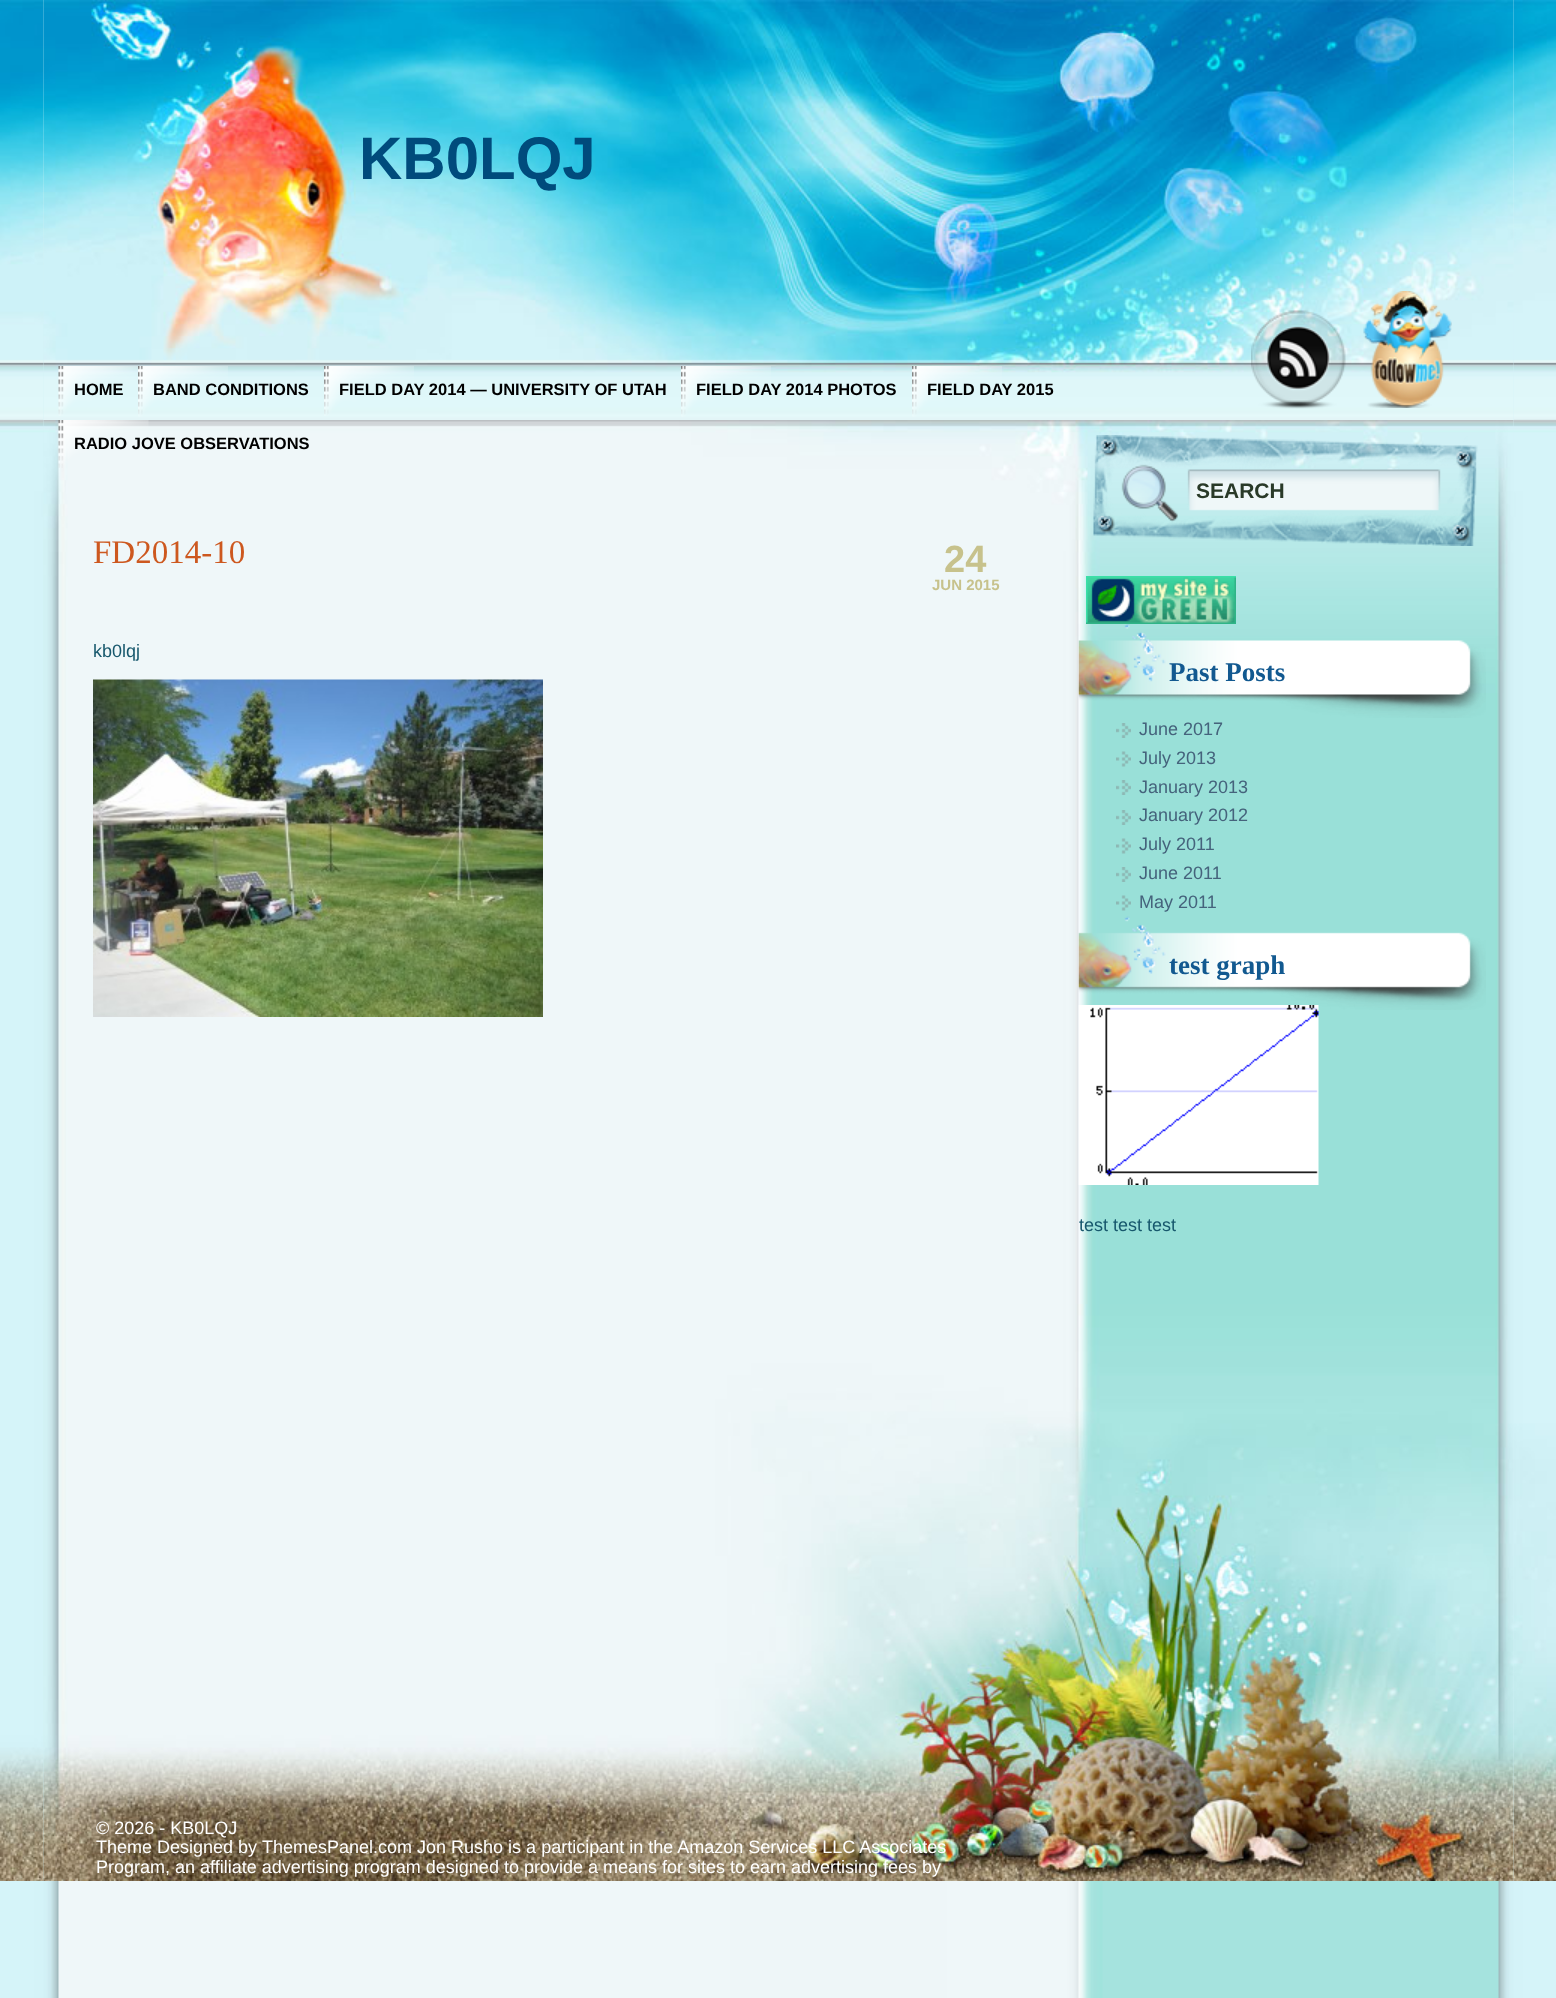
<svg xmlns="http://www.w3.org/2000/svg" width="1556" height="1998" viewBox="0 0 1556 1998">
  <rect width="100%" height="100%" fill="#fff"/>
  <image x="0" y="693" width="1556" height="1305" href="img/1.png"/>
  <image x="0" y="0" width="1556" height="693" href="img/2.png"/>
  <image x="0" y="1303" width="1556" height="578" href="img/3.png"/>
  <image x="43" y="0" width="1471" height="1881" href="img/4.png"/>
  <image x="43" y="0" width="1471" height="420" href="img/5.png"/>
  <image x="1251" y="310" width="95" height="99" href="img/6.png"/>
  <image x="1363" y="291" width="89" height="117" href="img/7.png"/>
  <image x="58" y="366" width="80" height="50" href="img/8.png"/>
  <image x="138" y="366" width="90" height="51" href="img/9.png"/>
  <image x="324" y="366" width="90" height="50" href="img/10.png"/>
  <image x="681" y="366" width="90" height="51" href="img/11.png"/>
  <image x="912" y="366" width="90" height="51" href="img/12.png"/>
  <image x="43" y="420" width="1471" height="273" href="img/14.png"/>
  <image x="58" y="420" width="91" height="48" href="img/13.png"/>
  <image x="93" y="679" width="450" height="338" href="img/15.png"/>
  <image x="1093" y="435" width="385" height="111" href="img/16.png"/>
  <image x="1086" y="576" width="150" height="48" href="img/17.png"/>
  <image x="1078" y="624" width="408" height="94" href="img/18.png"/>
  <image x="1116" y="723" width="15" height="15" href="img/19.png"/>
  <image x="1116" y="751" width="15" height="16" href="img/20.png"/>
  <image x="1116" y="780" width="15" height="15" href="img/19.png"/>
  <image x="1116" y="810" width="15" height="15" href="img/19.png"/>
  <image x="1116" y="838" width="15" height="16" href="img/20.png"/>
  <image x="1116" y="867" width="15" height="15" href="img/19.png"/>
  <image x="1116" y="895" width="15" height="16" href="img/20.png"/>
  <image x="1078" y="916" width="408" height="94" href="img/21.png"/>
  <image x="1078" y="1005" width="241" height="180" href="img/22.png"/>
  <image x="43" y="1304" width="1471" height="577" href="img/23.png"/>
  <text x="359" y="179" font-family="Liberation Sans" font-size="60" font-weight="bold" fill="#004b7c">KB0LQJ</text>
  <g font-family="Liberation Sans" font-size="16.5" font-weight="bold" fill="#000">
    <text x="74" y="395">HOME</text>
    <text x="153" y="395">BAND CONDITIONS</text>
    <text x="339" y="395">FIELD DAY 2014 — UNIVERSITY OF UTAH</text>
    <text x="696" y="395">FIELD DAY 2014 PHOTOS</text>
    <text x="927" y="395">FIELD DAY 2015</text>
    <text x="74" y="449">RADIO JOVE OBSERVATIONS</text>
  </g>
  <text x="93" y="563" font-family="Liberation Serif" font-size="33" fill="#cd581f">FD2014-10</text>
  <text x="944" y="572" font-family="Liberation Sans" font-size="38" font-weight="bold" fill="#c7c28c">24</text>
  <text x="932" y="590" font-family="Liberation Sans" font-size="15" font-weight="bold" fill="#c7c28c">JUN 2015</text>
  <text x="93" y="657" font-family="Liberation Sans" font-size="18" fill="#17586d">kb0lqj</text>
  <text x="1196" y="498" font-family="Liberation Sans" font-size="21" font-weight="bold" fill="#293a28">SEARCH</text>
  <text x="1169" y="681" font-family="Liberation Serif" font-size="27" font-weight="bold" fill="#125990">Past Posts</text>
  <g font-family="Liberation Sans" font-size="18" fill="#45637c">
    <text x="1139" y="735">June 2017</text>
    <text x="1139" y="764">July 2013</text>
    <text x="1139" y="793">January 2013</text>
    <text x="1139" y="821">January 2012</text>
    <text x="1139" y="850">July 2011</text>
    <text x="1139" y="879">June 2011</text>
    <text x="1139" y="908">May 2011</text>
  </g>
  <text x="1169" y="974" font-family="Liberation Serif" font-size="27" font-weight="bold" fill="#125990">test graph</text>
  <text x="1079" y="1231" font-family="Liberation Sans" font-size="18" fill="#17586d">test test test</text>
  <g font-family="Liberation Sans" font-size="18" fill="#fff">
    <text x="96" y="1834">© 2026 - KB0LQJ</text>
    <text x="96" y="1853">Theme Designed by</text>
    <text x="262" y="1853">ThemesPanel.com Jon Rusho is a participant in the Amazon Services LLC Associates</text>
    <text x="96" y="1873">Program, an affiliate advertising program designed to provide a means for sites to earn advertising fees by</text>
  </g>
</svg>
